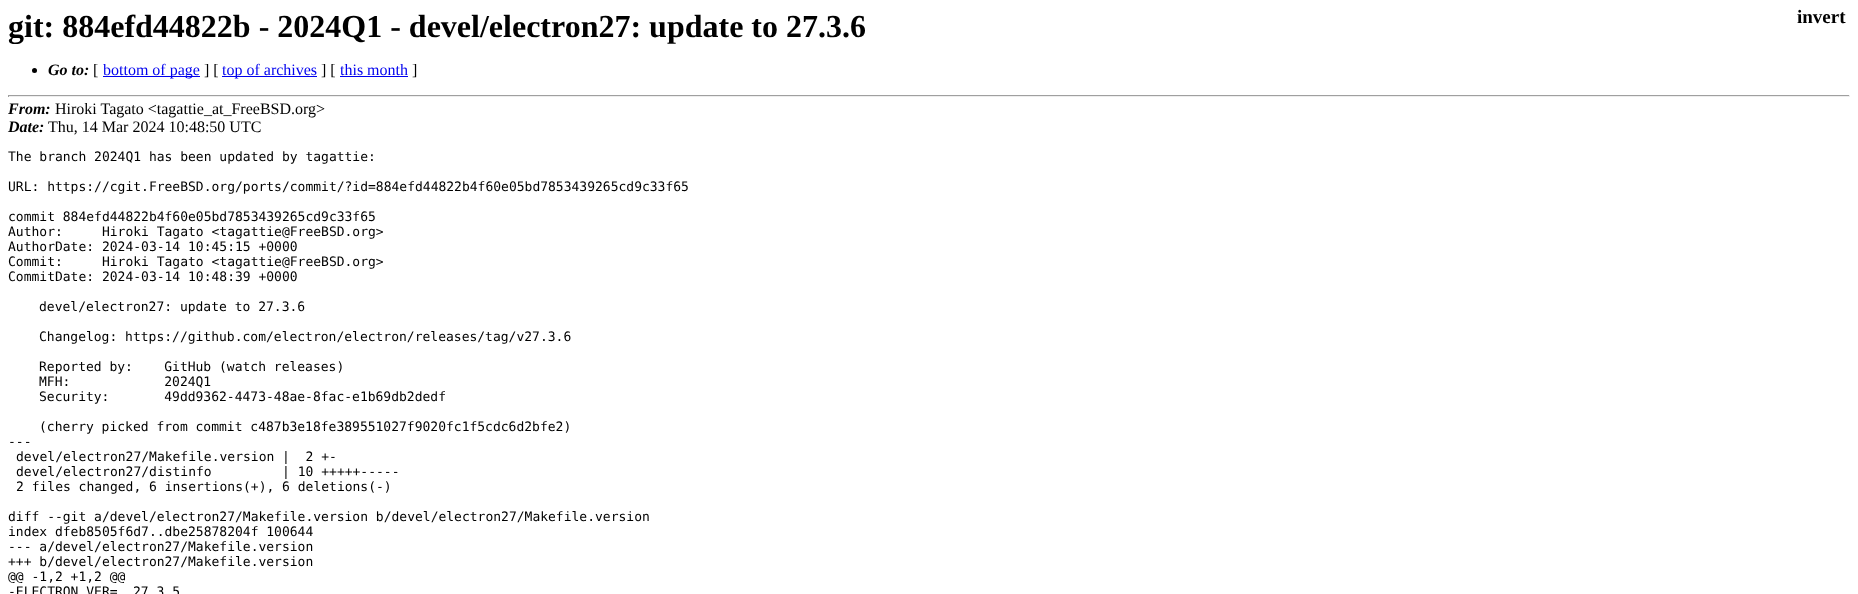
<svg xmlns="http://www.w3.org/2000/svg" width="1858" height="594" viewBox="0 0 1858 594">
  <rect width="100%" height="100%" fill="#fff"/>
  <circle cx="34.5" cy="70.5" r="2.5" fill="#000"/>
  <path d="M103 76h97v1H103z" fill="#00e"/>
  <path d="M222 76h95v1H222z" fill="#00e"/>
  <path d="M340 76h68v1H340z" fill="#00e"/>
  <path d="M8 95h1842v1H8z" fill="#9f9f9f"/>
  <path d="M1849 95h1v2H1849z" fill="#eee"/>
  <path d="M8 96h1842v1H8z" fill="#eee"/>
  <path d="M8 95h1v2H8z" fill="#9f9f9f"/>
  <text x="8" y="37" font-family="Liberation Serif" font-size="32" font-weight="bold" fill="#000">git: 884efd44822b - 2024Q1 - devel/electron27: update to 27.3.6</text>
  <text x="48" y="75" font-family="Liberation Serif" font-size="16" font-weight="bold" font-style="italic" fill="#000">Go to:</text>
  <text x="93" y="75" font-family="Liberation Serif" font-size="16" fill="#000">[</text>
  <text x="103" y="75" font-family="Liberation Serif" font-size="16" fill="#00e">bottom of page</text>
  <text x="204" y="75" font-family="Liberation Serif" font-size="16" fill="#000">] [</text>
  <text x="222" y="75" font-family="Liberation Serif" font-size="16" fill="#00e">top of archives</text>
  <text x="321" y="75" font-family="Liberation Serif" font-size="16" fill="#000">] [</text>
  <text x="340" y="75" font-family="Liberation Serif" font-size="16" fill="#00e">this month</text>
  <text x="412" y="75" font-family="Liberation Serif" font-size="16" fill="#000">]</text>
  <text x="1797" y="23" font-family="Liberation Serif" font-size="19" font-weight="bold" fill="#000">invert</text>
  <text x="8" y="114" font-family="Liberation Serif" font-size="16" font-weight="bold" font-style="italic" fill="#000">From:</text>
  <text x="55" y="114" font-family="Liberation Serif" font-size="16" fill="#000">Hiroki Tagato &lt;tagattie_at_FreeBSD.org&gt;</text>
  <text x="8" y="132" font-family="Liberation Serif" font-size="16" font-weight="bold" font-style="italic" fill="#000">Date:</text>
  <text x="48" y="132" font-family="Liberation Serif" font-size="16" fill="#000">Thu, 14 Mar 2024 10:48:50 UTC</text>
  <g font-family="DejaVu Sans Mono" font-size="13" fill="#000">
    <text x="8" y="161">The branch 2024Q1 has been updated by tagattie:</text>
    <text x="8" y="191">URL: https://cgit.FreeBSD.org/ports/commit/?id=884efd44822b4f60e05bd7853439265cd9c33f65</text>
    <text x="8" y="221">commit 884efd44822b4f60e05bd7853439265cd9c33f65</text>
    <text x="8" y="236" xml:space="preserve">Author:     Hiroki Tagato &lt;tagattie@FreeBSD.org&gt;</text>
    <text x="8" y="251">AuthorDate: 2024-03-14 10:45:15 +0000</text>
    <text x="8" y="266" xml:space="preserve">Commit:     Hiroki Tagato &lt;tagattie@FreeBSD.org&gt;</text>
    <text x="8" y="281">CommitDate: 2024-03-14 10:48:39 +0000</text>
    <text x="39" y="311">devel/electron27: update to 27.3.6</text>
    <text x="39" y="341">Changelog: https://github.com/electron/electron/releases/tag/v27.3.6</text>
    <text x="39" y="371" xml:space="preserve">Reported by:    GitHub (watch releases)</text>
    <text x="39" y="386" xml:space="preserve">MFH:            2024Q1</text>
    <text x="39" y="401" xml:space="preserve">Security:       49dd9362-4473-48ae-8fac-e1b69db2dedf</text>
    <text x="39" y="431">(cherry picked from commit c487b3e18fe389551027f9020fc1f5cdc6d2bfe2)</text>
    <text x="8" y="446">---</text>
    <text x="16" y="461" xml:space="preserve">devel/electron27/Makefile.version |  2 +-</text>
    <text x="16" y="476" xml:space="preserve">devel/electron27/distinfo         | 10 +++++-----</text>
    <text x="16" y="491">2 files changed, 6 insertions(+), 6 deletions(-)</text>
    <text x="8" y="521">diff --git a/devel/electron27/Makefile.version b/devel/electron27/Makefile.version</text>
    <text x="8" y="536">index dfeb8505f6d7..dbe25878204f 100644</text>
    <text x="8" y="551">--- a/devel/electron27/Makefile.version</text>
    <text x="8" y="566">+++ b/devel/electron27/Makefile.version</text>
    <text x="8" y="581">@@ -1,2 +1,2 @@</text>
    <text x="8" y="596">-ELECTRON_VER=</text>
    <text x="133" y="596">27.3.5</text>
  </g>
</svg>
